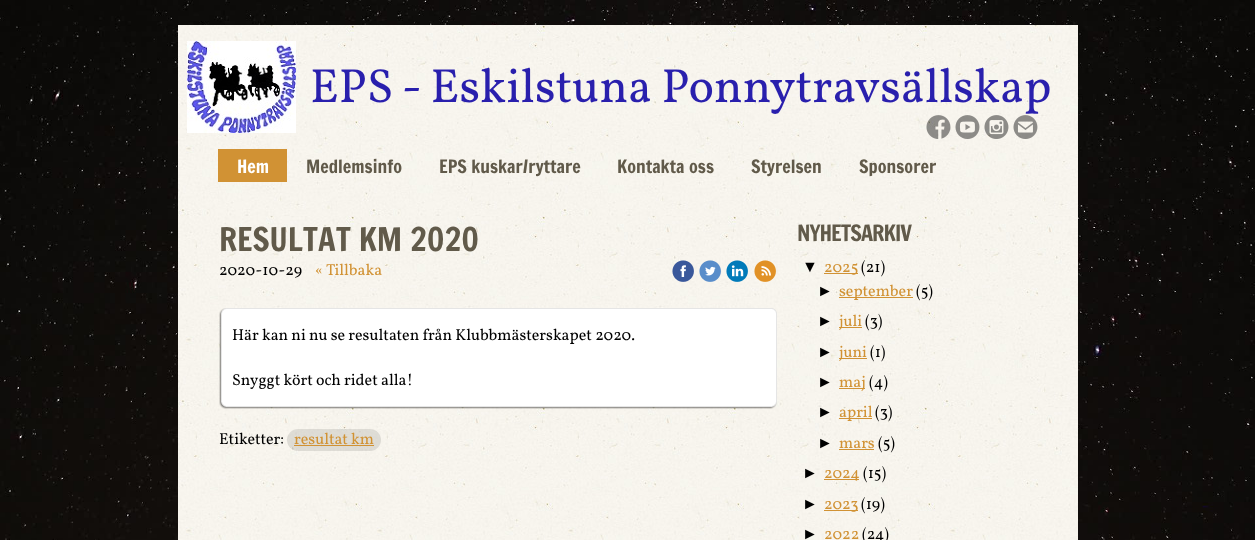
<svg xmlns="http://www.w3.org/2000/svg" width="1255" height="540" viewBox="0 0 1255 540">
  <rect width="100%" height="100%" fill="#fff"/>
  <image x="0" y="0" width="1255" height="540" href="img/1.png"/>
  <image x="178" y="25" width="900" height="515" href="img/2.png"/>
  <image x="187" y="41" width="109" height="92" href="img/3.png"/>
  <image x="926" y="115" width="25" height="24" href="img/4.png"/>
  <image x="955" y="115" width="25" height="24" href="img/5.png"/>
  <image x="984" y="115" width="25" height="24" href="img/6.png"/>
  <image x="1013" y="115" width="25" height="24" href="img/7.png"/>
  <path d="M218 149h69v33H218z" fill="#d19234"/>
  <image x="672" y="260" width="22" height="22" href="img/8.png"/>
  <image x="699" y="260" width="22" height="22" href="img/9.png"/>
  <image x="726" y="260" width="22" height="22" href="img/10.png"/>
  <image x="754" y="260" width="22" height="22" href="img/11.png"/>
  <image x="772" y="308" width="5" height="7" href="img/12.png"/>
  <image x="219" y="308" width="553" height="7" href="img/13.png"/>
  <path d="M776 315h1v87H776z" fill="#e5e5e5"/>
  <image x="219" y="315" width="3" height="87" href="img/14.png"/>
  <path d="M222 315h554v87H222z" fill="#fff"/>
  <image x="770" y="402" width="7" height="7" href="img/15.png"/>
  <image x="219" y="402" width="551" height="7" href="img/16.png"/>
  <rect x="287" y="429" width="94" height="22" rx="11" fill="#0000001a"/>
  <path d="M294 445h80v1H294z" fill="#d19234"/>
  <path d="M824 273h34v1H824z" fill="#d19234"/>
  <path d="M839 297h74v1H839z" fill="#d19234"/>
  <path d="M839 327h23v1H839z" fill="#d19234"/>
  <path d="M839 358h28v1H839z" fill="#d19234"/>
  <path d="M839 388h26v1H839z" fill="#d19234"/>
  <path d="M839 418h33v1H839z" fill="#d19234"/>
  <path d="M839 449h35v1H839z" fill="#d19234"/>
  <path d="M824 479h35v1H824z" fill="#d19234"/>
  <path d="M824 510h34v1H824z" fill="#d19234"/>
  <text x="310" y="102" font-family="Vollkorn" font-size="48" fill="#291fad">EPS - Eskilstuna Ponnytravsällskap</text>
  <text x="237" y="173" font-family="Francois One" font-size="18" fill="#fff">Hem</text>
  <g font-family="Francois One" font-size="18" fill="#615a4a">
    <text x="306" y="173">Medlemsinfo</text>
    <text x="439" y="173">EPS kuskar/ryttare</text>
    <text x="617" y="173">Kontakta oss</text>
    <text x="751" y="173">Styrelsen</text>
    <text x="859" y="173">Sponsorer</text>
  </g>
  <text x="219" y="251" font-family="Francois One" font-size="32" fill="#615a4a">RESULTAT KM 2020</text>
  <text x="219" y="275" font-family="Vollkorn" font-size="16" fill="#000">2020-10-29</text>
  <text x="315" y="275" font-family="Vollkorn" font-size="16" fill="#d19234">« Tillbaka</text>
  <g font-family="Vollkorn" font-size="16" fill="#000">
    <text x="232" y="340">Här kan ni nu se resultaten från Klubbmästerskapet 2020.</text>
    <text x="232" y="385">Snyggt kört och ridet alla!</text>
    <text x="219" y="444">Etiketter:</text>
  </g>
  <text x="294" y="444" font-family="Vollkorn" font-size="16" fill="#d19234">resultat km</text>
  <text x="797" y="241" font-family="Francois One" font-size="22" letter-spacing="-1" fill="#615a4a">NYHETSARKIV</text>
  <text x="802" y="272" font-family="Liberation Sans" font-size="16" fill="#000">▼</text>
  <text x="824" y="272" font-family="Vollkorn" font-size="16" fill="#d19234">2025</text>
  <text x="861" y="272" font-family="Vollkorn" font-size="16" fill="#000">(21)</text>
  <text x="817" y="296" font-family="Liberation Sans" font-size="16" fill="#000">►</text>
  <text x="839" y="296" font-family="Vollkorn" font-size="16" fill="#d19234">september</text>
  <text x="916" y="296" font-family="Vollkorn" font-size="16" fill="#000">(5)</text>
  <text x="817" y="326" font-family="Liberation Sans" font-size="16" fill="#000">►</text>
  <text x="839" y="326" font-family="Vollkorn" font-size="16" fill="#d19234">juli</text>
  <text x="865" y="326" font-family="Vollkorn" font-size="16" fill="#000">(3)</text>
  <text x="817" y="357" font-family="Liberation Sans" font-size="16" fill="#000">►</text>
  <text x="839" y="357" font-family="Vollkorn" font-size="16" fill="#d19234">juni</text>
  <text x="870" y="357" font-family="Vollkorn" font-size="16" fill="#000">(1)</text>
  <text x="817" y="387" font-family="Liberation Sans" font-size="16" fill="#000">►</text>
  <text x="839" y="387" font-family="Vollkorn" font-size="16" fill="#d19234">maj</text>
  <text x="869" y="387" font-family="Vollkorn" font-size="16" fill="#000">(4)</text>
  <text x="817" y="417" font-family="Liberation Sans" font-size="16" fill="#000">►</text>
  <text x="839" y="417" font-family="Vollkorn" font-size="16" fill="#d19234">april</text>
  <text x="875" y="417" font-family="Vollkorn" font-size="16" fill="#000">(3)</text>
  <text x="817" y="448" font-family="Liberation Sans" font-size="16" fill="#000">►</text>
  <text x="839" y="448" font-family="Vollkorn" font-size="16" fill="#d19234">mars</text>
  <text x="878" y="448" font-family="Vollkorn" font-size="16" fill="#000">(5)</text>
  <text x="802" y="478" font-family="Liberation Sans" font-size="16" fill="#000">►</text>
  <text x="824" y="478" font-family="Vollkorn" font-size="16" fill="#d19234">2024</text>
  <text x="863" y="478" font-family="Vollkorn" font-size="16" fill="#000">(15)</text>
  <text x="802" y="509" font-family="Liberation Sans" font-size="16" fill="#000">►</text>
  <text x="824" y="509" font-family="Vollkorn" font-size="16" fill="#d19234">2023</text>
  <text x="861" y="509" font-family="Vollkorn" font-size="16" fill="#000">(19)</text>
  <text x="802" y="539" font-family="Liberation Sans" font-size="16" fill="#000">►</text>
  <text x="824" y="539" font-family="Vollkorn" font-size="16" fill="#d19234">2022</text>
  <text x="862" y="539" font-family="Vollkorn" font-size="16" fill="#000">(24)</text>
</svg>
